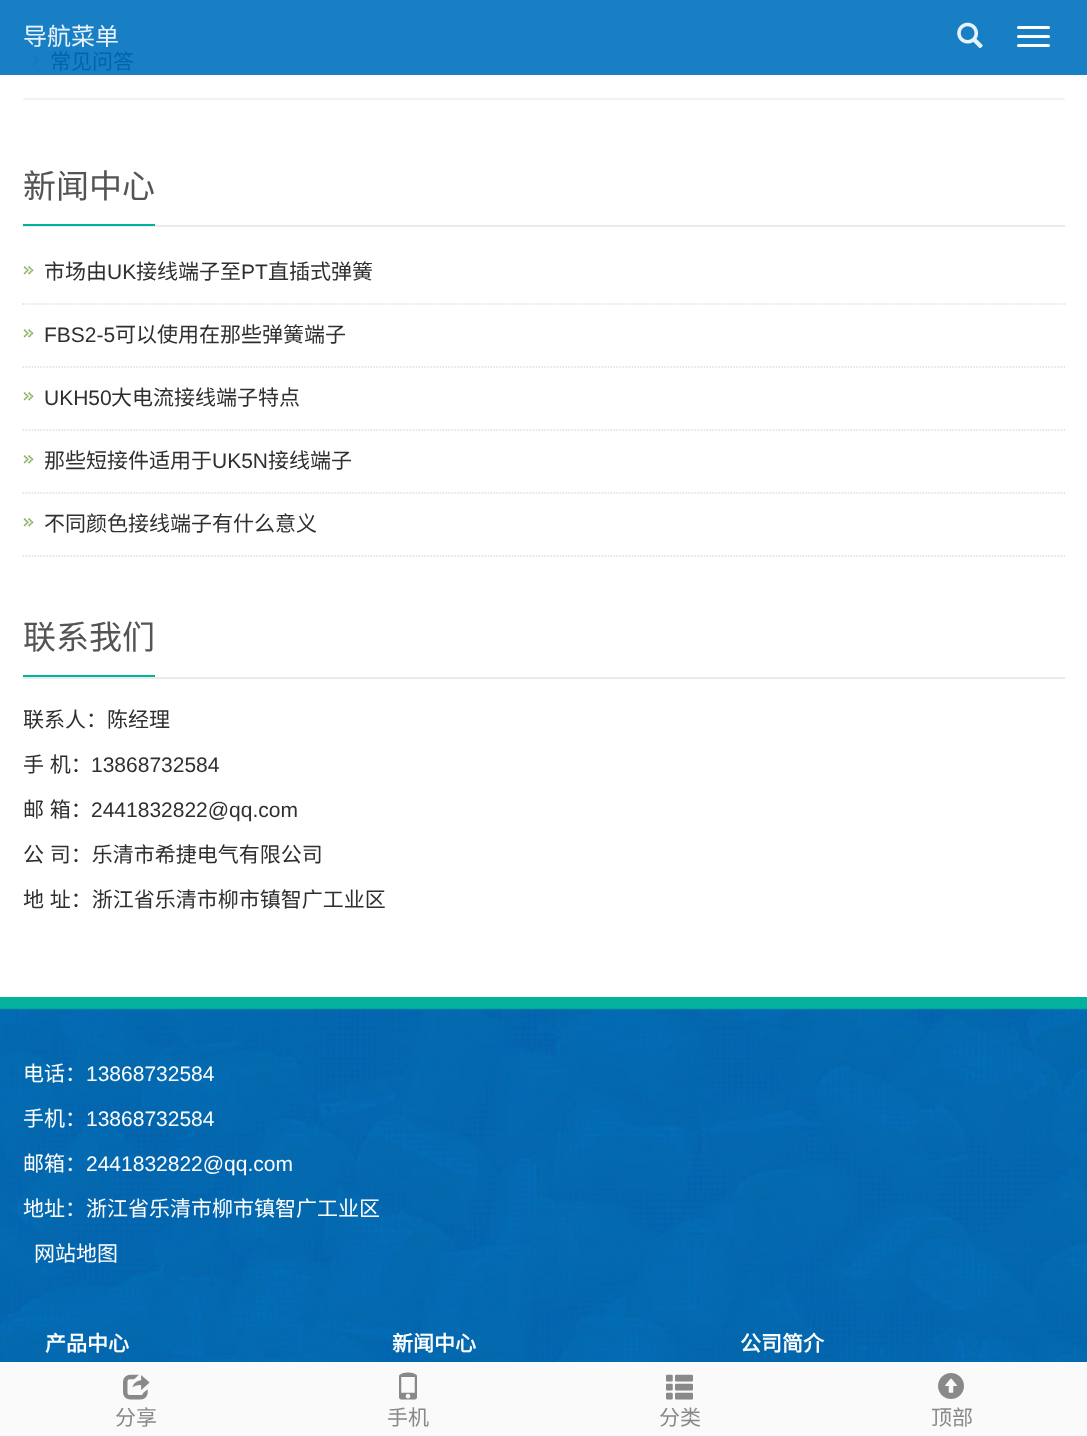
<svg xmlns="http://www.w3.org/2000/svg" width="1087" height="1436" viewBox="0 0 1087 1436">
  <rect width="100%" height="100%" fill="#fff"/>
  <path d="M0 0h1087v75H0z" fill="#197fc5"/>
  <image x="957" y="22" width="26" height="27" href="img/1.png"/>
  <rect x="1017" y="26" width="33" height="3" rx="1.5" fill="#fff"/>
  <rect x="1017" y="35" width="33" height="3" rx="1.5" fill="#fff"/>
  <rect x="1017" y="44" width="33" height="3" rx="1.5" fill="#fff"/>
  <image x="31" y="55" width="9" height="11" href="img/2.png"/>
  <path d="M23 98h1042v2H23z" fill="#f2f2f2"/>
  <path d="M23 225h1042v2H23z" fill="#ebebeb"/>
  <path d="M23 224h132v2H23z" fill="#02b29c"/>
  <image x="23" y="266" width="11" height="9" href="img/3.png"/>
  <path d="M22.5 304H1065" fill="none" stroke="#ddd" stroke-width="1.5" stroke-dasharray="1.5 1.5"/>
  <image x="23" y="329" width="11" height="9" href="img/3.png"/>
  <path d="M22.5 367H1065" fill="none" stroke="#ddd" stroke-width="1.5" stroke-dasharray="1.5 1.5"/>
  <image x="23" y="392" width="11" height="9" href="img/3.png"/>
  <path d="M22.5 430H1065" fill="none" stroke="#ddd" stroke-width="1.5" stroke-dasharray="1.5 1.5"/>
  <image x="23" y="455" width="11" height="9" href="img/3.png"/>
  <path d="M22.5 493H1065" fill="none" stroke="#ddd" stroke-width="1.5" stroke-dasharray="1.5 1.5"/>
  <image x="23" y="518" width="11" height="9" href="img/3.png"/>
  <path d="M22.5 556H1065" fill="none" stroke="#ddd" stroke-width="1.5" stroke-dasharray="1.5 1.5"/>
  <path d="M23 677h1042v2H23z" fill="#ebebeb"/>
  <path d="M23 675h132v2H23z" fill="#02b29c"/>
  <image x="0" y="997" width="1087" height="365" href="img/4.png"/>
  <path d="M0 1362h1087v74H0z" fill="#fafafa"/>
  <image x="123" y="1374" width="27" height="26" href="img/5.png"/>
  <image x="399" y="1372" width="18" height="28" href="img/6.png"/>
  <image x="666" y="1374" width="27" height="26" href="img/7.png"/>
  <image x="938" y="1373" width="26" height="26" href="img/8.png"/>
  <text x="23" y="45" font-family="Noto Sans CJK SC" font-size="24" fill="#e8f2f9">导航菜单</text>
  <text x="50" y="69" font-family="Noto Sans CJK SC" font-size="21" fill="#0066ac">常见问答</text>
  <text x="23" y="198" font-family="Noto Sans CJK SC" font-size="33" fill="#545454">新闻中心</text>
  <text x="44" y="279" font-family="Noto Sans CJK SC" font-size="21" fill="#2f2f2f">市场由</text>
  <text x="107" y="279" font-family="Liberation Sans" font-size="21" fill="#2f2f2f">UK</text>
  <text x="136" y="279" font-family="Noto Sans CJK SC" font-size="21" fill="#2f2f2f">接线端子至</text>
  <text x="241" y="279" font-family="Liberation Sans" font-size="21" fill="#2f2f2f">PT</text>
  <text x="268" y="279" font-family="Noto Sans CJK SC" font-size="21" fill="#2f2f2f">直插式弹簧</text>
  <text x="44" y="342" font-family="Liberation Sans" font-size="21" fill="#2f2f2f">FBS2-5</text>
  <text x="115" y="342" font-family="Noto Sans CJK SC" font-size="21" fill="#2f2f2f">可以使用在那些弹簧端子</text>
  <text x="44" y="405" font-family="Liberation Sans" font-size="21" fill="#2f2f2f">UKH50</text>
  <g font-family="Noto Sans CJK SC" font-size="21" fill="#2f2f2f">
    <text x="111" y="405">大电流接线端子特点</text>
    <text x="44" y="468">那些短接件适用于</text>
  </g>
  <text x="212" y="468" font-family="Liberation Sans" font-size="21" fill="#2f2f2f">UK5N</text>
  <g font-family="Noto Sans CJK SC" font-size="21" fill="#2f2f2f">
    <text x="268" y="468">接线端子</text>
    <text x="44" y="531">不同颜色接线端子有什么意义</text>
  </g>
  <text x="23" y="649" font-family="Noto Sans CJK SC" font-size="33" fill="#545454">联系我们</text>
  <g font-family="Noto Sans CJK SC" font-size="21" fill="#2f2f2f">
    <text x="23" y="727">联系人：陈经理</text>
    <text x="23" y="772" word-spacing="1">手 机：</text>
  </g>
  <text x="91" y="772" font-family="Liberation Sans" font-size="21" fill="#2f2f2f">13868732584</text>
  <text x="23" y="817" word-spacing="1" font-family="Noto Sans CJK SC" font-size="21" fill="#2f2f2f">邮 箱：</text>
  <text x="91" y="817" font-family="Liberation Sans" font-size="21" fill="#2f2f2f">2441832822@qq.com</text>
  <g font-family="Noto Sans CJK SC" font-size="21" fill="#2f2f2f">
    <text x="23" y="862" word-spacing="1">公 司：乐清市希捷电气有限公司</text>
    <text x="23" y="907" word-spacing="1">地 址：浙江省乐清市柳市镇智广工业区</text>
  </g>
  <text x="23" y="1081" font-family="Noto Sans CJK SC" font-size="21" fill="#fff">电话：</text>
  <text x="86" y="1081" font-family="Liberation Sans" font-size="21" fill="#fff">13868732584</text>
  <text x="23" y="1126" font-family="Noto Sans CJK SC" font-size="21" fill="#fff">手机：</text>
  <text x="86" y="1126" font-family="Liberation Sans" font-size="21" fill="#fff">13868732584</text>
  <text x="23" y="1171" font-family="Noto Sans CJK SC" font-size="21" fill="#fff">邮箱：</text>
  <text x="86" y="1171" font-family="Liberation Sans" font-size="21" fill="#fff">2441832822@qq.com</text>
  <g font-family="Noto Sans CJK SC" font-size="21" fill="#fff">
    <text x="23" y="1216">地址：浙江省乐清市柳市镇智广工业区</text>
    <text x="34" y="1261">网站地图</text>
  </g>
  <g font-family="Noto Sans CJK SC" font-size="21" font-weight="bold" fill="#fff">
    <text x="45" y="1351">产品中心</text>
    <text x="392" y="1351">新闻中心</text>
    <text x="740" y="1351">公司简介</text>
  </g>
  <g font-family="Noto Sans CJK SC" font-size="21" fill="#898989">
    <text x="115" y="1425">分享</text>
    <text x="387" y="1425">手机</text>
    <text x="659" y="1425">分类</text>
    <text x="931" y="1425">顶部</text>
  </g>
</svg>
